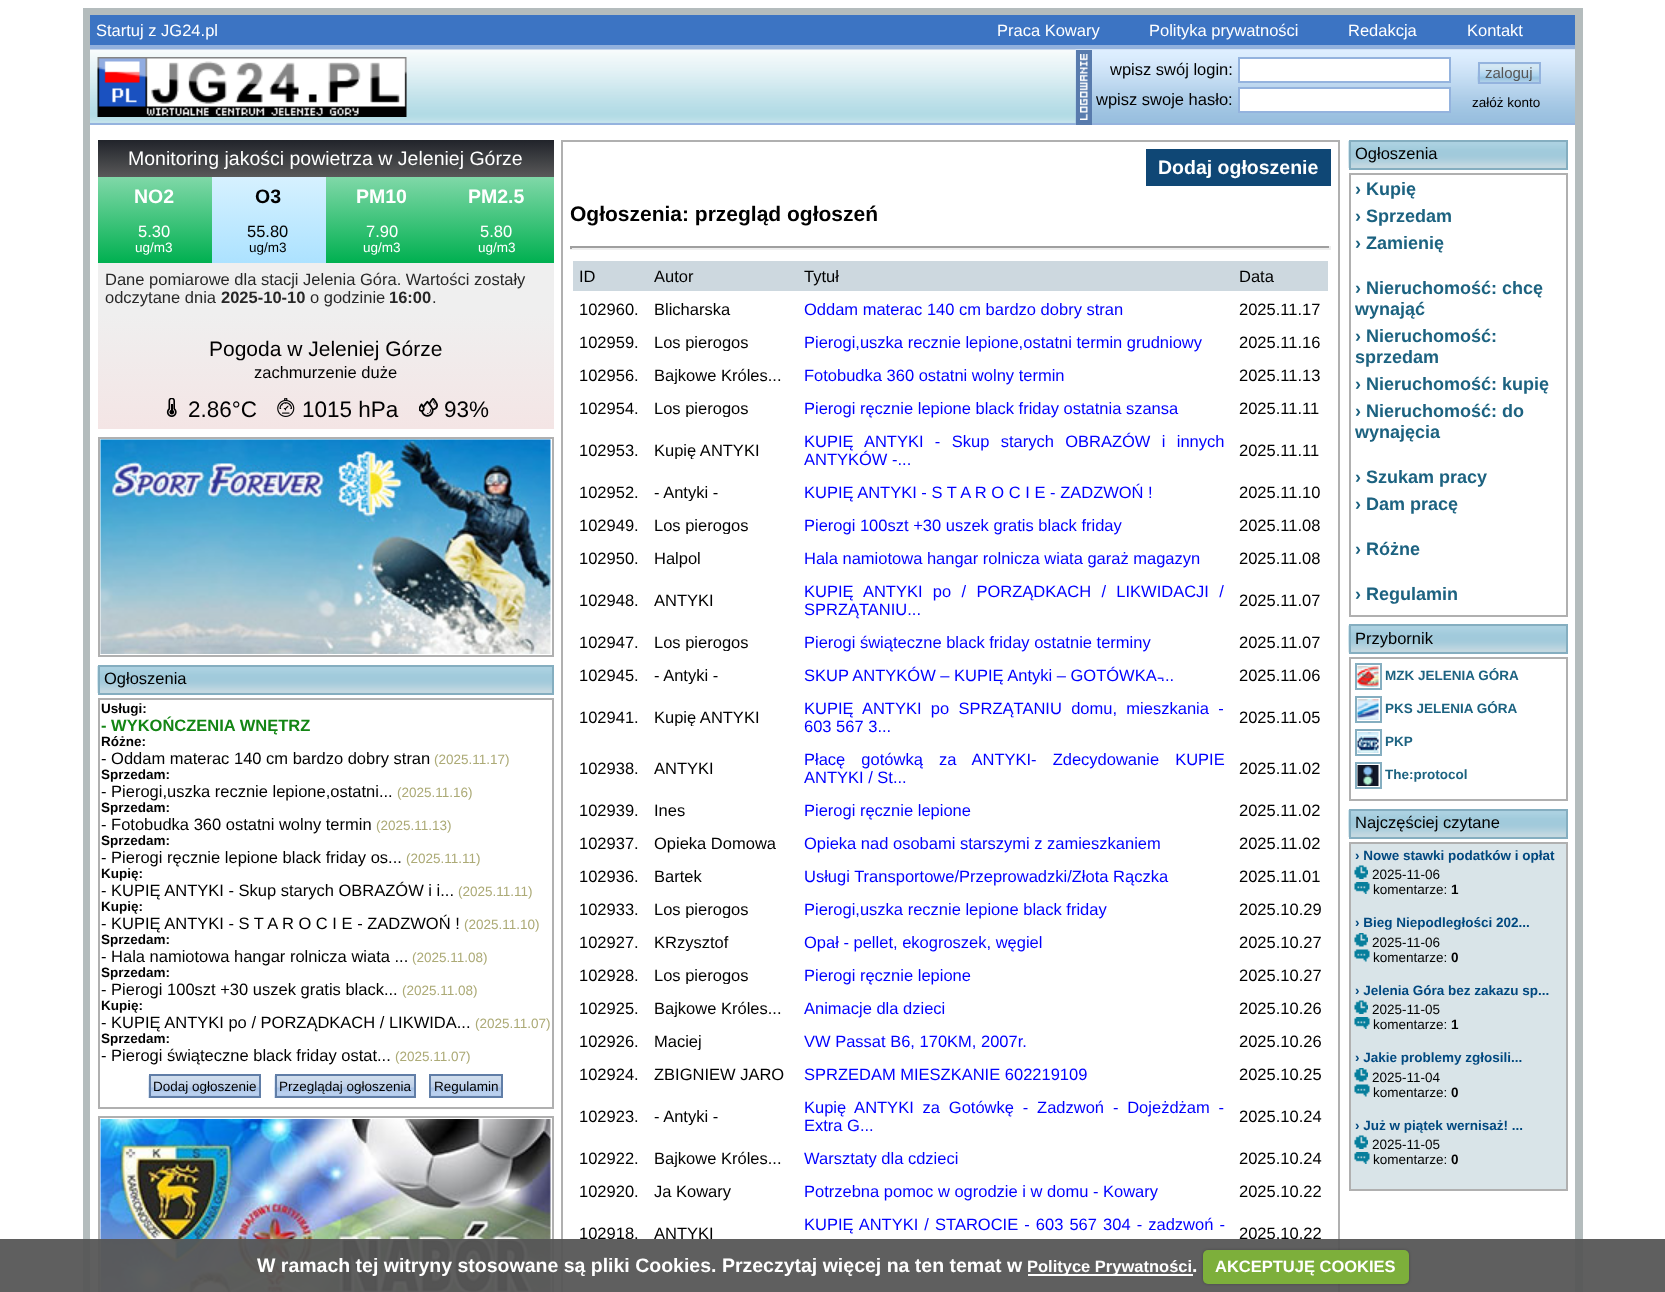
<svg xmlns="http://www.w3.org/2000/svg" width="1665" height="1292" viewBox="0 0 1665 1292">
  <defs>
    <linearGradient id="g1" gradientUnits="userSpaceOnUse" x1="326" y1="139" x2="326" y2="177"><stop offset="0" stop-color="#1f2229"/><stop offset="1" stop-color="#595959"/></linearGradient>
    <linearGradient id="g2" gradientUnits="userSpaceOnUse" x1="154" y1="177" x2="154" y2="263"><stop offset="0" stop-color="#80d8a8"/><stop offset="1" stop-color="#00b050"/></linearGradient>
    <linearGradient id="g3" gradientUnits="userSpaceOnUse" x1="268" y1="177" x2="268" y2="263"><stop offset="0" stop-color="#d6f1ff"/><stop offset="1" stop-color="#ace2ff"/></linearGradient>
    <linearGradient id="g4" gradientUnits="userSpaceOnUse" x1="382" y1="177" x2="382" y2="263"><stop offset="0" stop-color="#80d8a8"/><stop offset="1" stop-color="#00b050"/></linearGradient>
    <linearGradient id="g5" gradientUnits="userSpaceOnUse" x1="497" y1="177" x2="497" y2="263"><stop offset="0" stop-color="#80d8a8"/><stop offset="1" stop-color="#00b050"/></linearGradient>
    <linearGradient id="g6" gradientUnits="userSpaceOnUse" x1="326" y1="429" x2="326" y2="314"><stop offset="0" stop-color="#f4e5e5"/><stop offset="1" stop-color="#efefef"/></linearGradient>
    <clipPath id="clip1"><path d="M654 333h135v18H654z"/></clipPath>
    <clipPath id="clip2"><path d="M654 366h135v18H654z"/></clipPath>
    <clipPath id="clip3"><path d="M654 399h135v18H654z"/></clipPath>
    <clipPath id="clip4"><path d="M654 441h135v18H654z"/></clipPath>
    <clipPath id="clip5"><path d="M654 483h135v18H654z"/></clipPath>
    <clipPath id="clip6"><path d="M654 516h135v18H654z"/></clipPath>
    <clipPath id="clip7"><path d="M654 633h135v18H654z"/></clipPath>
    <clipPath id="clip8"><path d="M654 666h135v18H654z"/></clipPath>
    <clipPath id="clip9"><path d="M654 708h135v18H654z"/></clipPath>
    <clipPath id="clip10"><path d="M654 900h135v18H654z"/></clipPath>
    <clipPath id="clip11"><path d="M654 933h135v18H654z"/></clipPath>
    <clipPath id="clip12"><path d="M654 966h135v18H654z"/></clipPath>
    <clipPath id="clip13"><path d="M654 999h135v18H654z"/></clipPath>
    <clipPath id="clip14"><path d="M654 1032h135v18H654z"/></clipPath>
    <clipPath id="clip15"><path d="M654 1107h135v18H654z"/></clipPath>
    <clipPath id="clip16"><path d="M654 1149h135v18H654z"/></clipPath>
  </defs>
  <rect width="100%" height="100%" fill="#fff"/>
  <path d="M83 8h1500v1284H83z" fill="#b4bcbd"/>
  <path d="M90 15h1485v30H90z" fill="#3c74c3"/>
  <path d="M90 45h1485v5H90z" fill="#92b1dd"/>
  <path d="M90 121h986v2H90z" fill="#c4e3eb"/>
  <image x="90" y="49" width="1485" height="72" href="img/1.png"/>
  <path d="M90 123h1485v2H90z" fill="#95b3de"/>
  <image x="97" y="57" width="310" height="60" href="img/2.png"/>
  <image x="1075" y="49" width="500" height="74" href="img/3.png"/>
  <path d="M1078.5 52.5h11v70H1078.5z" fill="none" stroke="#587bad" stroke-width="5"/>
  <image x="1080" y="54" width="8" height="66" href="img/4.png"/>
  <path d="M1239 58h211v24H1239z" fill="#fff" stroke="#94b3de" stroke-width="2"/>
  <image x="1477" y="63" width="62" height="21" href="img/5.png"/>
  <path d="M1479 63h61v20H1479z" fill="none" stroke="#94b3de" stroke-width="2"/>
  <path d="M1239 88h211v24H1239z" fill="#fff" stroke="#94b3de" stroke-width="2"/>
  <path d="M90 125h1485v1167H90z" fill="#fff"/>
  <path d="M98 140h456v37H98z" fill="url(#g1)"/>
  <path d="M98 177h114v86H98z" fill="url(#g2)"/>
  <path d="M212 177h114v86H212z" fill="url(#g3)"/>
  <path d="M326 177h114v86H326z" fill="url(#g4)"/>
  <path d="M440 177h114v86H440z" fill="url(#g5)"/>
  <path d="M98 263h456v51H98z" fill="#efefef"/>
  <path d="M98 314h456v115H98z" fill="url(#g6)"/>
  <image x="166" y="398" width="11" height="19" href="img/6.png"/>
  <image x="277" y="398" width="18" height="19" href="img/7.png"/>
  <image x="419" y="398" width="19" height="19" href="img/8.png"/>
  <path d="M99 438h454v218H99z" fill="none" stroke="#b0b0b0" stroke-width="2"/>
  <image x="100" y="439" width="451" height="215" href="img/9.png"/>
  <image x="97" y="666" width="455" height="27" href="img/10.png"/>
  <path d="M99 666h454v28H99z" fill="none" stroke="#85aec0" stroke-width="2"/>
  <path d="M99 699h454v409H99z" fill="none" stroke="#b0b0b0" stroke-width="2"/>
  <image x="148" y="1075" width="111" height="23" href="img/11.png"/>
  <image x="274" y="1075" width="140" height="23" href="img/12.png"/>
  <image x="431" y="1076" width="70" height="20" href="img/13.png"/>
  <path d="M150 1075h110v22H150z" fill="none" stroke="#617ea7" stroke-width="2"/>
  <path d="M276 1075h139v22H276z" fill="none" stroke="#617ea7" stroke-width="2"/>
  <path d="M430 1075h72v22H430z" fill="none" stroke="#617ea7" stroke-width="2"/>
  <path d="M99 1117h454v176H99z" fill="none" stroke="#b0b0b0" stroke-width="2"/>
  <image x="100" y="1119" width="451" height="173" href="img/14.png"/>
  <path d="M562 141h777v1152H562z" fill="none" stroke="#b0b0b0" stroke-width="2"/>
  <path d="M1146 149h185v37H1146z" fill="#0f4775"/>
  <path d="M570 246h761v2H570z" fill="#9f9f9f"/>
  <path d="M1329 246h2v3H1329z" fill="#eee"/>
  <path d="M570 248h761v2H570z" fill="#eee"/>
  <path d="M570 246h2v3H570z" fill="#9f9f9f"/>
  <path d="M573 261h755v30H573z" fill="#cdd8df"/>
  <image x="1348" y="141" width="218" height="27" href="img/15.png"/>
  <path d="M1350 141h217v28H1350z" fill="none" stroke="#85aec0" stroke-width="2"/>
  <path d="M1350 174h217v442H1350z" fill="none" stroke="#b0b0b0" stroke-width="2"/>
  <image x="1348" y="625" width="218" height="28" href="img/16.png"/>
  <path d="M1350 625h217v28H1350z" fill="none" stroke="#85aec0" stroke-width="2"/>
  <path d="M1350 658h217v142H1350z" fill="none" stroke="#b0b0b0" stroke-width="2"/>
  <path d="M1356 664h25v25H1356z" fill="none" stroke="#85aec0" stroke-width="2"/>
  <image x="1357" y="666" width="22" height="21" href="img/17.png"/>
  <path d="M1356 697h25v25H1356z" fill="none" stroke="#85aec0" stroke-width="2"/>
  <image x="1357" y="699" width="22" height="21" href="img/18.png"/>
  <path d="M1356 730h25v25H1356z" fill="none" stroke="#85aec0" stroke-width="2"/>
  <image x="1357" y="732" width="22" height="21" href="img/19.png"/>
  <path d="M1356 763h25v25H1356z" fill="none" stroke="#85aec0" stroke-width="2"/>
  <image x="1357" y="765" width="22" height="21" href="img/20.png"/>
  <image x="1348" y="810" width="218" height="27" href="img/15.png"/>
  <path d="M1350 810h217v28H1350z" fill="none" stroke="#85aec0" stroke-width="2"/>
  <path d="M1350 843h217v347H1350z" fill="#d9e4e8" stroke="#b0b0b0" stroke-width="2"/>
  <image x="1354" y="865" width="14" height="14" href="img/21.png"/>
  <image x="1354" y="882" width="16" height="12" href="img/22.png"/>
  <image x="1354" y="933" width="14" height="14" href="img/23.png"/>
  <image x="1354" y="949" width="16" height="13" href="img/24.png"/>
  <image x="1354" y="1000" width="14" height="14" href="img/21.png"/>
  <image x="1354" y="1017" width="16" height="12" href="img/22.png"/>
  <image x="1354" y="1068" width="14" height="14" href="img/23.png"/>
  <image x="1354" y="1084" width="16" height="13" href="img/24.png"/>
  <image x="1354" y="1135" width="14" height="14" href="img/21.png"/>
  <image x="1354" y="1152" width="16" height="12" href="img/22.png"/>
  <g font-family="Liberation Sans" font-size="16.5" fill="#fff">
    <text x="96" y="36">Startuj z JG24.pl</text>
    <text x="997" y="36">Praca Kowary</text>
    <text x="1149" y="36">Polityka prywatności</text>
    <text x="1348" y="36">Redakcja</text>
    <text x="1467" y="36">Kontakt</text>
  </g>
  <text x="1110" y="75" font-family="Liberation Sans" font-size="16.5" fill="#000">wpisz swój login:</text>
  <text x="1485" y="78" font-family="Liberation Sans" font-size="15" fill="#565656">zaloguj</text>
  <text x="1096" y="105" font-family="Liberation Sans" font-size="16.5" fill="#000">wpisz swoje hasło:</text>
  <text x="1472" y="107" font-family="Liberation Sans" font-size="13.5" fill="#000">załóż konto</text>
  <text x="128" y="165" font-family="Liberation Sans" font-size="19.5" fill="#fff">Monitoring jakości powietrza w Jeleniej Górze</text>
  <text x="134" y="203" font-family="Liberation Sans" font-size="19.5" font-weight="bold" fill="#fff">NO2</text>
  <text x="138" y="237" font-family="Liberation Sans" font-size="16.5" fill="#fff">5.30</text>
  <text x="135" y="252" font-family="Liberation Sans" font-size="13.5" fill="#fff">ug/m3</text>
  <text x="255" y="203" font-family="Liberation Sans" font-size="19.5" font-weight="bold" fill="#000">O3</text>
  <text x="247" y="237" font-family="Liberation Sans" font-size="16.5" fill="#000">55.80</text>
  <text x="249" y="252" font-family="Liberation Sans" font-size="13.5" fill="#000">ug/m3</text>
  <text x="356" y="203" font-family="Liberation Sans" font-size="19.5" font-weight="bold" fill="#fff">PM10</text>
  <text x="366" y="237" font-family="Liberation Sans" font-size="16.5" fill="#fff">7.90</text>
  <text x="363" y="252" font-family="Liberation Sans" font-size="13.5" fill="#fff">ug/m3</text>
  <text x="468" y="203" font-family="Liberation Sans" font-size="19.5" font-weight="bold" fill="#fff">PM2.5</text>
  <text x="480" y="237" font-family="Liberation Sans" font-size="16.5" fill="#fff">5.80</text>
  <text x="478" y="252" font-family="Liberation Sans" font-size="13.5" fill="#fff">ug/m3</text>
  <g font-family="Liberation Sans" font-size="16.5" fill="#272727">
    <text x="105" y="285">Dane pomiarowe dla stacji Jelenia Góra. Wartości zostały</text>
    <text x="105" y="303">odczytane dnia</text>
  </g>
  <text x="221" y="303" font-family="Liberation Sans" font-size="16.5" font-weight="bold" fill="#272727">2025-10-10</text>
  <text x="310" y="303" font-family="Liberation Sans" font-size="16.5" fill="#272727">o godzinie</text>
  <text x="389" y="303" font-family="Liberation Sans" font-size="16.5" font-weight="bold" fill="#272727">16:00</text>
  <text x="432" y="303" font-family="Liberation Sans" font-size="16.5" fill="#272727">.</text>
  <text x="209" y="356" font-family="Liberation Sans" font-size="21" fill="#000">Pogoda w Jeleniej Górze</text>
  <text x="254" y="378" font-family="Liberation Sans" font-size="16.5" fill="#000">zachmurzenie duże</text>
  <g font-family="Liberation Sans" font-size="22.5" fill="#000">
    <text x="188" y="417">2.86°C</text>
    <text x="302" y="417">1015 hPa</text>
    <text x="444" y="417">93%</text>
  </g>
  <text x="104" y="684" font-family="Liberation Sans" font-size="16.5" fill="#000">Ogłoszenia</text>
  <text x="101" y="713" font-family="Liberation Sans" font-size="13.5" font-weight="bold" fill="#000">Usługi:</text>
  <text x="101" y="731" font-family="Liberation Sans" font-size="16.5" font-weight="bold" fill="#138514">- WYKOŃCZENIA WNĘTRZ</text>
  <text x="101" y="746" font-family="Liberation Sans" font-size="13.5" font-weight="bold" fill="#000">Różne:</text>
  <text x="101" y="764" font-family="Liberation Sans" font-size="16.5" fill="#000">- Oddam materac 140 cm bardzo dobry stran</text>
  <text x="434" y="764" font-family="Liberation Sans" font-size="13.5" fill="#acaa76">(2025.11.17)</text>
  <text x="101" y="779" font-family="Liberation Sans" font-size="13.5" font-weight="bold" fill="#000">Sprzedam:</text>
  <text x="101" y="797" font-family="Liberation Sans" font-size="16.5" fill="#000">- Pierogi,uszka recznie lepione,ostatni...</text>
  <text x="397" y="797" font-family="Liberation Sans" font-size="13.5" fill="#acaa76">(2025.11.16)</text>
  <text x="101" y="812" font-family="Liberation Sans" font-size="13.5" font-weight="bold" fill="#000">Sprzedam:</text>
  <text x="101" y="830" font-family="Liberation Sans" font-size="16.5" fill="#000">- Fotobudka 360 ostatni wolny termin</text>
  <text x="376" y="830" font-family="Liberation Sans" font-size="13.5" fill="#acaa76">(2025.11.13)</text>
  <text x="101" y="845" font-family="Liberation Sans" font-size="13.5" font-weight="bold" fill="#000">Sprzedam:</text>
  <text x="101" y="863" font-family="Liberation Sans" font-size="16.5" fill="#000">- Pierogi ręcznie lepione black friday os...</text>
  <text x="406" y="863" font-family="Liberation Sans" font-size="13.5" fill="#acaa76">(2025.11.11)</text>
  <text x="101" y="878" font-family="Liberation Sans" font-size="13.5" font-weight="bold" fill="#000">Kupię:</text>
  <text x="101" y="896" font-family="Liberation Sans" font-size="16.5" fill="#000">- KUPIĘ ANTYKI - Skup starych OBRAZÓW i i...</text>
  <text x="458" y="896" font-family="Liberation Sans" font-size="13.5" fill="#acaa76">(2025.11.11)</text>
  <text x="101" y="911" font-family="Liberation Sans" font-size="13.5" font-weight="bold" fill="#000">Kupię:</text>
  <text x="101" y="929" font-family="Liberation Sans" font-size="16.5" fill="#000">- KUPIĘ ANTYKI - S T A R O C I E - ZADZWOŃ !</text>
  <text x="464" y="929" font-family="Liberation Sans" font-size="13.5" fill="#acaa76">(2025.11.10)</text>
  <text x="101" y="944" font-family="Liberation Sans" font-size="13.5" font-weight="bold" fill="#000">Sprzedam:</text>
  <text x="101" y="962" font-family="Liberation Sans" font-size="16.5" fill="#000">- Hala namiotowa hangar rolnicza wiata ...</text>
  <text x="412" y="962" font-family="Liberation Sans" font-size="13.5" fill="#acaa76">(2025.11.08)</text>
  <text x="101" y="977" font-family="Liberation Sans" font-size="13.5" font-weight="bold" fill="#000">Sprzedam:</text>
  <text x="101" y="995" font-family="Liberation Sans" font-size="16.5" fill="#000">- Pierogi 100szt +30 uszek gratis black...</text>
  <text x="402" y="995" font-family="Liberation Sans" font-size="13.5" fill="#acaa76">(2025.11.08)</text>
  <text x="101" y="1010" font-family="Liberation Sans" font-size="13.5" font-weight="bold" fill="#000">Kupię:</text>
  <text x="101" y="1028" font-family="Liberation Sans" font-size="16.5" fill="#000">- KUPIĘ ANTYKI po / PORZĄDKACH / LIKWIDA...</text>
  <text x="475" y="1028" font-family="Liberation Sans" font-size="13.5" fill="#acaa76">(2025.11.07)</text>
  <text x="101" y="1043" font-family="Liberation Sans" font-size="13.5" font-weight="bold" fill="#000">Sprzedam:</text>
  <text x="101" y="1061" font-family="Liberation Sans" font-size="16.5" fill="#000">- Pierogi świąteczne black friday ostat...</text>
  <text x="395" y="1061" font-family="Liberation Sans" font-size="13.5" fill="#acaa76">(2025.11.07)</text>
  <g font-family="Liberation Sans" font-size="13.5" fill="#000">
    <text x="153" y="1091">Dodaj ogłoszenie</text>
    <text x="279" y="1091">Przeglądaj ogłoszenia</text>
    <text x="434" y="1091">Regulamin</text>
  </g>
  <text x="1158" y="174" font-family="Liberation Sans" font-size="19.5" font-weight="bold" fill="#fff">Dodaj ogłoszenie</text>
  <text x="570" y="221" font-family="Liberation Sans" font-size="21" font-weight="bold" fill="#000">Ogłoszenia: przegląd ogłoszeń</text>
  <g font-family="Liberation Sans" font-size="16.5" fill="#000">
    <text x="579" y="282">ID</text>
    <text x="654" y="282">Autor</text>
    <text x="804" y="282">Tytuł</text>
    <text x="1239" y="282">Data</text>
    <text x="579" y="315">102960.</text>
    <text x="654" y="315">Blicharska</text>
  </g>
  <text x="804" y="315" font-family="Liberation Sans" font-size="16.5" fill="#00f">Oddam materac 140 cm bardzo dobry stran</text>
  <g font-family="Liberation Sans" font-size="16.5" fill="#000">
    <text x="1239" y="315">2025.11.17</text>
    <text x="579" y="348">102959.</text>
  </g>
  <g clip-path="url(#clip1)">
    <text x="654" y="348" font-family="Liberation Sans" font-size="16.5" fill="#000">Los pierogos</text>
  </g>
  <text x="804" y="348" font-family="Liberation Sans" font-size="16.5" fill="#00f">Pierogi,uszka recznie lepione,ostatni termin grudniowy</text>
  <g font-family="Liberation Sans" font-size="16.5" fill="#000">
    <text x="1239" y="348">2025.11.16</text>
    <text x="579" y="381">102956.</text>
  </g>
  <g clip-path="url(#clip2)">
    <text x="654" y="381" font-family="Liberation Sans" font-size="16.5" fill="#000">Bajkowe Króles...</text>
  </g>
  <text x="804" y="381" font-family="Liberation Sans" font-size="16.5" fill="#00f">Fotobudka 360 ostatni wolny termin</text>
  <g font-family="Liberation Sans" font-size="16.5" fill="#000">
    <text x="1239" y="381">2025.11.13</text>
    <text x="579" y="414">102954.</text>
  </g>
  <g clip-path="url(#clip3)">
    <text x="654" y="414" font-family="Liberation Sans" font-size="16.5" fill="#000">Los pierogos</text>
  </g>
  <text x="804" y="414" font-family="Liberation Sans" font-size="16.5" fill="#00f">Pierogi ręcznie lepione black friday ostatnia szansa</text>
  <g font-family="Liberation Sans" font-size="16.5" fill="#000">
    <text x="1239" y="414">2025.11.11</text>
    <text x="579" y="456">102953.</text>
  </g>
  <g clip-path="url(#clip4)">
    <text x="654" y="456" font-family="Liberation Sans" font-size="16.5" fill="#000">Kupię ANTYKI</text>
  </g>
  <g font-family="Liberation Sans" font-size="16.5" fill="#00f">
    <text x="804" y="447" word-spacing="6.75">KUPIĘ ANTYKI - Skup starych OBRAZÓW i innych</text>
    <text x="804" y="465">ANTYKÓW -...</text>
  </g>
  <g font-family="Liberation Sans" font-size="16.5" fill="#000">
    <text x="1239" y="456">2025.11.11</text>
    <text x="579" y="498">102952.</text>
  </g>
  <g clip-path="url(#clip5)">
    <text x="654" y="498" font-family="Liberation Sans" font-size="16.5" fill="#000">- Antyki -</text>
  </g>
  <text x="804" y="498" font-family="Liberation Sans" font-size="16.5" fill="#00f">KUPIĘ ANTYKI - S T A R O C I E - ZADZWOŃ !</text>
  <g font-family="Liberation Sans" font-size="16.5" fill="#000">
    <text x="1239" y="498">2025.11.10</text>
    <text x="579" y="531">102949.</text>
  </g>
  <g clip-path="url(#clip6)">
    <text x="654" y="531" font-family="Liberation Sans" font-size="16.5" fill="#000">Los pierogos</text>
  </g>
  <text x="804" y="531" font-family="Liberation Sans" font-size="16.5" fill="#00f">Pierogi 100szt +30 uszek gratis black friday</text>
  <g font-family="Liberation Sans" font-size="16.5" fill="#000">
    <text x="1239" y="531">2025.11.08</text>
    <text x="579" y="564">102950.</text>
    <text x="654" y="564">Halpol</text>
  </g>
  <text x="804" y="564" font-family="Liberation Sans" font-size="16.5" fill="#00f">Hala namiotowa hangar rolnicza wiata garaż magazyn</text>
  <g font-family="Liberation Sans" font-size="16.5" fill="#000">
    <text x="1239" y="564">2025.11.08</text>
    <text x="579" y="606">102948.</text>
    <text x="654" y="606">ANTYKI</text>
  </g>
  <g font-family="Liberation Sans" font-size="16.5" fill="#00f">
    <text x="804" y="597" word-spacing="5.75">KUPIĘ ANTYKI po / PORZĄDKACH / LIKWIDACJI /</text>
    <text x="804" y="615">SPRZĄTANIU...</text>
  </g>
  <g font-family="Liberation Sans" font-size="16.5" fill="#000">
    <text x="1239" y="606">2025.11.07</text>
    <text x="579" y="648">102947.</text>
  </g>
  <g clip-path="url(#clip7)">
    <text x="654" y="648" font-family="Liberation Sans" font-size="16.5" fill="#000">Los pierogos</text>
  </g>
  <text x="804" y="648" font-family="Liberation Sans" font-size="16.5" fill="#00f">Pierogi świąteczne black friday ostatnie terminy</text>
  <g font-family="Liberation Sans" font-size="16.5" fill="#000">
    <text x="1239" y="648">2025.11.07</text>
    <text x="579" y="681">102945.</text>
  </g>
  <g clip-path="url(#clip8)">
    <text x="654" y="681" font-family="Liberation Sans" font-size="16.5" fill="#000">- Antyki -</text>
  </g>
  <text x="804" y="681" font-family="Liberation Sans" font-size="16.5" fill="#00f">SKUP ANTYKÓW – KUPIĘ Antyki – GOTÓWKA ̵...</text>
  <g font-family="Liberation Sans" font-size="16.5" fill="#000">
    <text x="1239" y="681">2025.11.06</text>
    <text x="579" y="723">102941.</text>
  </g>
  <g clip-path="url(#clip9)">
    <text x="654" y="723" font-family="Liberation Sans" font-size="16.5" fill="#000">Kupię ANTYKI</text>
  </g>
  <g font-family="Liberation Sans" font-size="16.5" fill="#00f">
    <text x="804" y="714" word-spacing="4.75">KUPIĘ ANTYKI po SPRZĄTANIU domu, mieszkania -</text>
    <text x="804" y="732">603 567 3...</text>
  </g>
  <g font-family="Liberation Sans" font-size="16.5" fill="#000">
    <text x="1239" y="723">2025.11.05</text>
    <text x="579" y="774">102938.</text>
    <text x="654" y="774">ANTYKI</text>
  </g>
  <g font-family="Liberation Sans" font-size="16.5" fill="#00f">
    <text x="804" y="765" word-spacing="11.5">Płacę gotówką za ANTYKI- Zdecydowanie KUPIE</text>
    <text x="804" y="783">ANTYKI / St...</text>
  </g>
  <g font-family="Liberation Sans" font-size="16.5" fill="#000">
    <text x="1239" y="774">2025.11.02</text>
    <text x="579" y="816">102939.</text>
    <text x="654" y="816">Ines</text>
  </g>
  <text x="804" y="816" font-family="Liberation Sans" font-size="16.5" fill="#00f">Pierogi ręcznie lepione</text>
  <g font-family="Liberation Sans" font-size="16.5" fill="#000">
    <text x="1239" y="816">2025.11.02</text>
    <text x="579" y="849">102937.</text>
    <text x="654" y="849">Opieka Domowa</text>
  </g>
  <text x="804" y="849" font-family="Liberation Sans" font-size="16.5" fill="#00f">Opieka nad osobami starszymi z zamieszkaniem</text>
  <g font-family="Liberation Sans" font-size="16.5" fill="#000">
    <text x="1239" y="849">2025.11.02</text>
    <text x="579" y="882">102936.</text>
    <text x="654" y="882">Bartek</text>
  </g>
  <text x="804" y="882" font-family="Liberation Sans" font-size="16.5" fill="#00f">Usługi Transportowe/Przeprowadzki/Złota Rączka</text>
  <g font-family="Liberation Sans" font-size="16.5" fill="#000">
    <text x="1239" y="882">2025.11.01</text>
    <text x="579" y="915">102933.</text>
  </g>
  <g clip-path="url(#clip10)">
    <text x="654" y="915" font-family="Liberation Sans" font-size="16.5" fill="#000">Los pierogos</text>
  </g>
  <text x="804" y="915" font-family="Liberation Sans" font-size="16.5" fill="#00f">Pierogi,uszka recznie lepione black friday</text>
  <g font-family="Liberation Sans" font-size="16.5" fill="#000">
    <text x="1239" y="915">2025.10.29</text>
    <text x="579" y="948">102927.</text>
  </g>
  <g clip-path="url(#clip11)">
    <text x="654" y="948" font-family="Liberation Sans" font-size="16.5" fill="#000">KRzysztof</text>
  </g>
  <text x="804" y="948" font-family="Liberation Sans" font-size="16.5" fill="#00f">Opał - pellet, ekogroszek, węgiel</text>
  <g font-family="Liberation Sans" font-size="16.5" fill="#000">
    <text x="1239" y="948">2025.10.27</text>
    <text x="579" y="981">102928.</text>
  </g>
  <g clip-path="url(#clip12)">
    <text x="654" y="981" font-family="Liberation Sans" font-size="16.5" fill="#000">Los pierogos</text>
  </g>
  <text x="804" y="981" font-family="Liberation Sans" font-size="16.5" fill="#00f">Pierogi ręcznie lepione</text>
  <g font-family="Liberation Sans" font-size="16.5" fill="#000">
    <text x="1239" y="981">2025.10.27</text>
    <text x="579" y="1014">102925.</text>
  </g>
  <g clip-path="url(#clip13)">
    <text x="654" y="1014" font-family="Liberation Sans" font-size="16.5" fill="#000">Bajkowe Króles...</text>
  </g>
  <text x="804" y="1014" font-family="Liberation Sans" font-size="16.5" fill="#00f">Animacje dla dzieci</text>
  <g font-family="Liberation Sans" font-size="16.5" fill="#000">
    <text x="1239" y="1014">2025.10.26</text>
    <text x="579" y="1047">102926.</text>
  </g>
  <g clip-path="url(#clip14)">
    <text x="654" y="1047" font-family="Liberation Sans" font-size="16.5" fill="#000">Maciej</text>
  </g>
  <text x="804" y="1047" font-family="Liberation Sans" font-size="16.5" fill="#00f">VW Passat B6, 170KM, 2007r.</text>
  <g font-family="Liberation Sans" font-size="16.5" fill="#000">
    <text x="1239" y="1047">2025.10.26</text>
    <text x="579" y="1080">102924.</text>
    <text x="654" y="1080">ZBIGNIEW JARO</text>
  </g>
  <text x="804" y="1080" font-family="Liberation Sans" font-size="16.5" fill="#00f">SPRZEDAM MIESZKANIE 602219109</text>
  <g font-family="Liberation Sans" font-size="16.5" fill="#000">
    <text x="1239" y="1080">2025.10.25</text>
    <text x="579" y="1122">102923.</text>
  </g>
  <g clip-path="url(#clip15)">
    <text x="654" y="1122" font-family="Liberation Sans" font-size="16.5" fill="#000">- Antyki -</text>
  </g>
  <g font-family="Liberation Sans" font-size="16.5" fill="#00f">
    <text x="804" y="1113" word-spacing="4.25">Kupię ANTYKI za Gotówkę - Zadzwoń - Dojeżdżam -</text>
    <text x="804" y="1131">Extra G...</text>
  </g>
  <g font-family="Liberation Sans" font-size="16.5" fill="#000">
    <text x="1239" y="1122">2025.10.24</text>
    <text x="579" y="1164">102922.</text>
  </g>
  <g clip-path="url(#clip16)">
    <text x="654" y="1164" font-family="Liberation Sans" font-size="16.5" fill="#000">Bajkowe Króles...</text>
  </g>
  <text x="804" y="1164" font-family="Liberation Sans" font-size="16.5" fill="#00f">Warsztaty dla cdzieci</text>
  <g font-family="Liberation Sans" font-size="16.5" fill="#000">
    <text x="1239" y="1164">2025.10.24</text>
    <text x="579" y="1197">102920.</text>
    <text x="654" y="1197">Ja Kowary</text>
  </g>
  <text x="804" y="1197" font-family="Liberation Sans" font-size="16.5" fill="#00f">Potrzebna pomoc w ogrodzie i w domu - Kowary</text>
  <g font-family="Liberation Sans" font-size="16.5" fill="#000">
    <text x="1239" y="1197">2025.10.22</text>
    <text x="579" y="1239">102918.</text>
    <text x="654" y="1239">ANTYKI</text>
  </g>
  <text x="804" y="1230" word-spacing="1.5" font-family="Liberation Sans" font-size="16.5" fill="#00f">KUPIĘ ANTYKI / STAROCIE - 603 567 304 - zadzwoń -</text>
  <g font-family="Liberation Sans" font-size="16.5" fill="#000">
    <text x="1239" y="1239">2025.10.22</text>
    <text x="1355" y="159">Ogłoszenia</text>
  </g>
  <g font-family="Liberation Sans" font-size="18" font-weight="bold" fill="#1c6280">
    <text x="1355" y="195">› Kupię</text>
    <text x="1355" y="222">› Sprzedam</text>
    <text x="1355" y="249">› Zamienię</text>
    <text x="1355" y="294">› Nieruchomość: chcę</text>
    <text x="1355" y="315">wynająć</text>
    <text x="1355" y="342">› Nieruchomość:</text>
    <text x="1355" y="363">sprzedam</text>
    <text x="1355" y="390">› Nieruchomość: kupię</text>
    <text x="1355" y="417">› Nieruchomość: do</text>
    <text x="1355" y="438">wynajęcia</text>
    <text x="1355" y="483">› Szukam pracy</text>
    <text x="1355" y="510">› Dam pracę</text>
    <text x="1355" y="555">› Różne</text>
    <text x="1355" y="600">› Regulamin</text>
  </g>
  <text x="1355" y="644" font-family="Liberation Sans" font-size="16.5" fill="#000">Przybornik</text>
  <g font-family="Liberation Sans" font-size="13.5" font-weight="bold" fill="#1c6280">
    <text x="1385" y="680">MZK JELENIA GÓRA</text>
    <text x="1385" y="713">PKS JELENIA GÓRA</text>
    <text x="1385" y="746">PKP</text>
    <text x="1385" y="779">The:protocol</text>
  </g>
  <text x="1355" y="828" font-family="Liberation Sans" font-size="16.5" fill="#000">Najczęściej czytane</text>
  <text x="1355" y="860" font-family="Liberation Sans" font-size="13.5" font-weight="bold" fill="#00487f">› Nowe stawki podatków i opłat</text>
  <g font-family="Liberation Sans" font-size="13.5" fill="#000">
    <text x="1372" y="879">2025-11-06</text>
    <text x="1373" y="894">komentarze:</text>
  </g>
  <text x="1451" y="894" font-family="Liberation Sans" font-size="13.5" font-weight="bold" fill="#000">1</text>
  <text x="1355" y="927" font-family="Liberation Sans" font-size="13.5" font-weight="bold" fill="#00487f">› Bieg Niepodległości 202...</text>
  <g font-family="Liberation Sans" font-size="13.5" fill="#000">
    <text x="1372" y="947">2025-11-06</text>
    <text x="1373" y="962">komentarze:</text>
  </g>
  <text x="1451" y="962" font-family="Liberation Sans" font-size="13.5" font-weight="bold" fill="#000">0</text>
  <text x="1355" y="995" font-family="Liberation Sans" font-size="13.5" font-weight="bold" fill="#00487f">› Jelenia Góra bez zakazu sp...</text>
  <g font-family="Liberation Sans" font-size="13.5" fill="#000">
    <text x="1372" y="1014">2025-11-05</text>
    <text x="1373" y="1029">komentarze:</text>
  </g>
  <text x="1451" y="1029" font-family="Liberation Sans" font-size="13.5" font-weight="bold" fill="#000">1</text>
  <text x="1355" y="1062" font-family="Liberation Sans" font-size="13.5" font-weight="bold" fill="#00487f">› Jakie problemy zgłosili...</text>
  <g font-family="Liberation Sans" font-size="13.5" fill="#000">
    <text x="1372" y="1082">2025-11-04</text>
    <text x="1373" y="1097">komentarze:</text>
  </g>
  <text x="1451" y="1097" font-family="Liberation Sans" font-size="13.5" font-weight="bold" fill="#000">0</text>
  <text x="1355" y="1130" font-family="Liberation Sans" font-size="13.5" font-weight="bold" fill="#00487f">› Już w piątek wernisaż! ...</text>
  <g font-family="Liberation Sans" font-size="13.5" fill="#000">
    <text x="1372" y="1149">2025-11-05</text>
    <text x="1373" y="1164">komentarze:</text>
  </g>
  <text x="1451" y="1164" font-family="Liberation Sans" font-size="13.5" font-weight="bold" fill="#000">0</text>
  <path d="M0 1239h1665v53H0z" fill="#565656f2"/>
  <text x="257" y="1272" font-family="Liberation Sans" font-size="19.5" font-weight="bold" fill="#fff">W ramach tej witryny stosowane są pliki Cookies. Przeczytaj więcej na ten temat w</text>
  <path d="M1028 1274h165v2H1028z" fill="#fff"/>
  <text x="1027" y="1272" font-family="Liberation Sans" font-size="16.5" font-weight="bold" fill="#fff">Polityce Prywatności</text>
  <text x="1192" y="1272" font-family="Liberation Sans" font-size="19.5" font-weight="bold" fill="#fff">.</text>
  <rect x="1203" y="1250" width="206" height="34" rx="5" fill="#00000040" filter="blur(1.5px)"/>
  <rect x="1203" y="1250" width="206" height="34" rx="5" fill="#7daf3b"/>
  <text x="1215" y="1272" font-family="Liberation Sans" font-size="16.5" font-weight="bold" fill="#fff">AKCEPTUJĘ COOKIES</text>
</svg>
